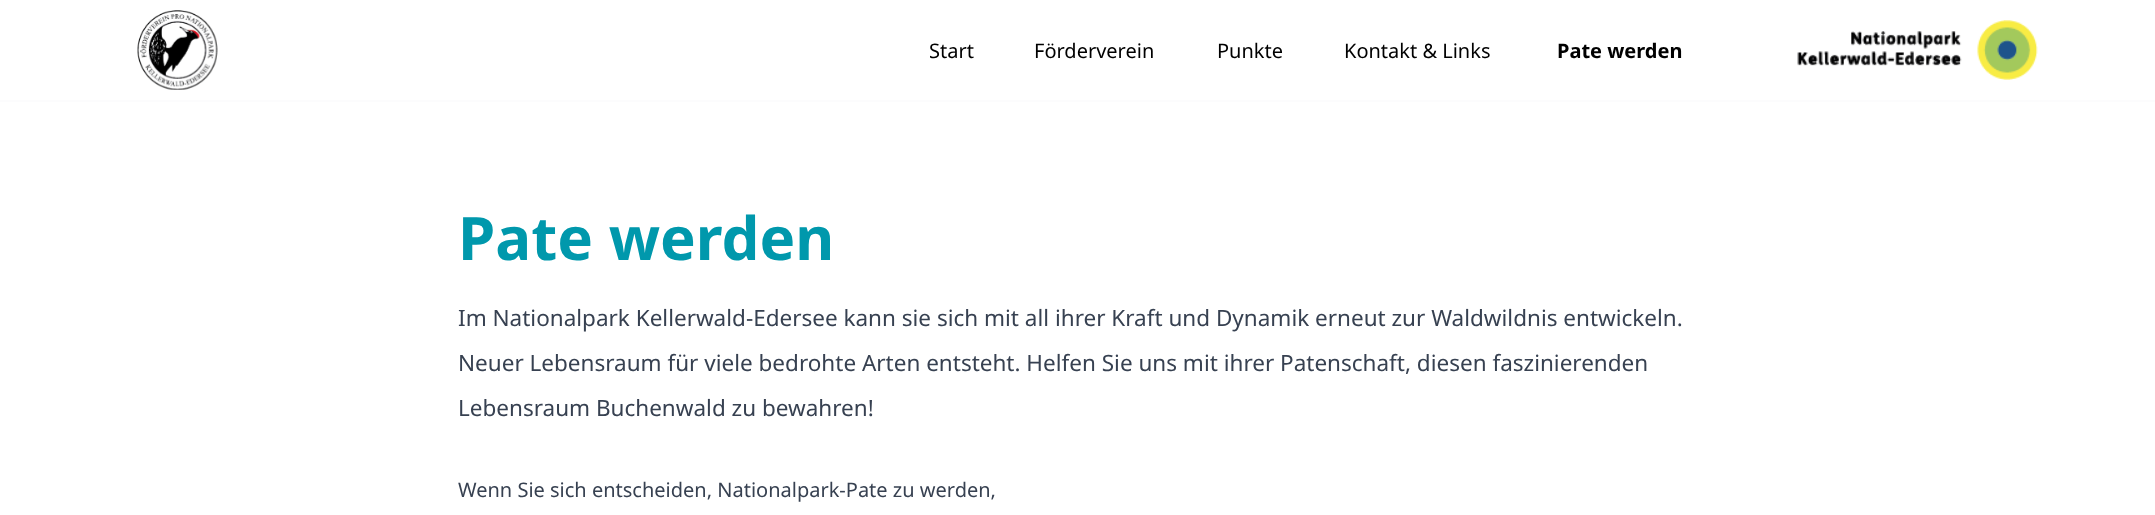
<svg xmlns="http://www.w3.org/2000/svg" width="2155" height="515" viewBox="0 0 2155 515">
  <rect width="100%" height="100%" fill="#fff"/>
  <image x="137" y="10" width="81" height="80" href="img/1.png"/>
  <image x="1797" y="20" width="241" height="60" href="img/2.png"/>
  <path d="M0 100h2155v2H0z" fill="#fcfcfd"/>
  <g font-family="Noto Sans" font-size="20" fill="#000">
    <text x="929" y="58">Start</text>
    <text x="1034" y="58">Förderverein</text>
    <text x="1217" y="58">Punkte</text>
    <text x="1344" y="58">Kontakt &amp; Links</text>
  </g>
  <text x="1557" y="58" font-family="Noto Sans" font-size="20" font-weight="bold" fill="#000">Pate werden</text>
  <text x="458" y="260" font-family="Noto Sans" font-size="60" font-weight="bold" fill="#0098ac">Pate werden</text>
  <g font-family="Noto Sans" font-size="22.5" fill="#374151">
    <text x="458" y="326">Im Nationalpark Kellerwald-Edersee kann sie sich mit all ihrer Kraft und Dynamik erneut zur Waldwildnis entwickeln.</text>
    <text x="458" y="371">Neuer Lebensraum für viele bedrohte Arten entsteht. Helfen Sie uns mit ihrer Patenschaft, diesen faszinierenden</text>
    <text x="458" y="416">Lebensraum Buchenwald zu bewahren!</text>
  </g>
  <text x="458" y="497" font-family="Noto Sans" font-size="20" fill="#374151">Wenn Sie sich entscheiden, Nationalpark-Pate zu werden,</text>
</svg>
